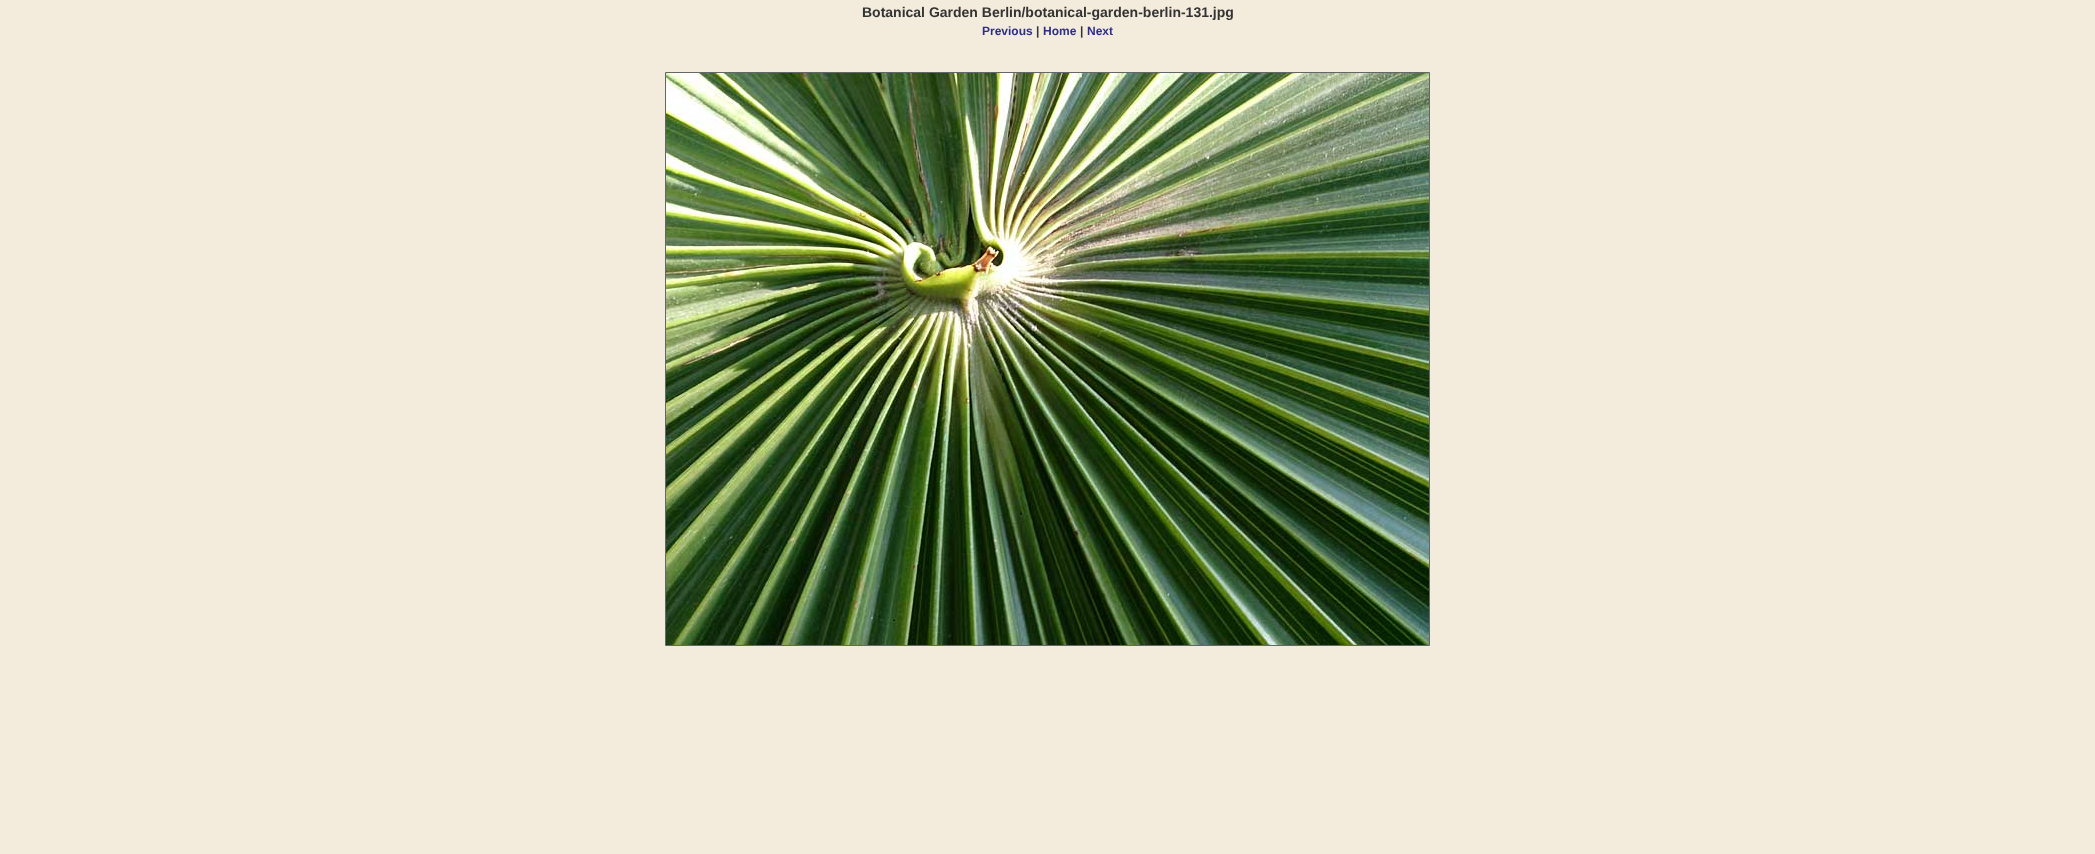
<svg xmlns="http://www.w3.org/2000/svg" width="2095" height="854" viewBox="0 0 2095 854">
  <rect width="100%" height="100%" fill="#f3ecdd"/>
  <path d="M665.5 72.5h764v573H665.5z" fill="none" stroke="#666"/>
  <image x="666" y="73" width="763" height="572" href="img/1.png"/>
  <text x="862" y="17" font-family="Liberation Sans" font-size="14" font-weight="bold" fill="#333">Botanical Garden Berlin/botanical-garden-berlin-131.jpg</text>
  <text x="982" y="35" font-family="Liberation Sans" font-size="12" font-weight="bold" fill="#2e2e8a">Previous</text>
  <text x="1036" y="35" font-family="Liberation Sans" font-size="12" font-weight="bold" fill="#333">|</text>
  <text x="1043" y="35" font-family="Liberation Sans" font-size="12" font-weight="bold" fill="#2e2e8a">Home</text>
  <text x="1080" y="35" font-family="Liberation Sans" font-size="12" font-weight="bold" fill="#333">|</text>
  <text x="1087" y="35" font-family="Liberation Sans" font-size="12" font-weight="bold" fill="#2e2e8a">Next</text>
</svg>
